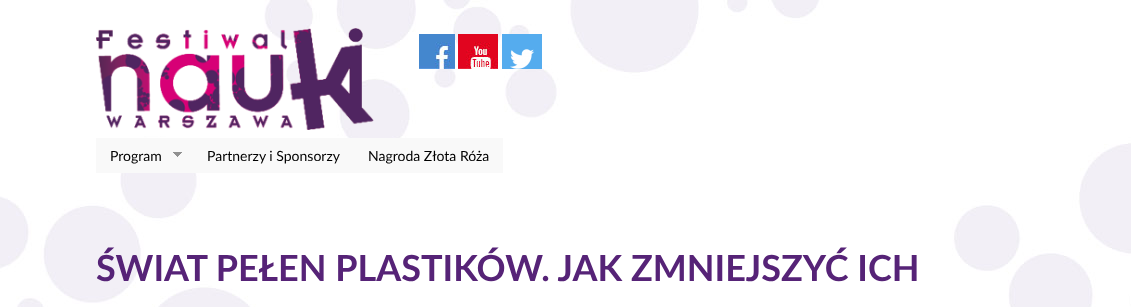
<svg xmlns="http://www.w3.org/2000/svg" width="1131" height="307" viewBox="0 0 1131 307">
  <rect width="100%" height="100%" fill="#fff"/>
  <image x="0" y="0" width="1131" height="307" href="img/1.png"/>
  <image x="96" y="28" width="278" height="102" href="img/2.png"/>
  <image x="419" y="34" width="36" height="35" href="img/3.png"/>
  <image x="458" y="34" width="40" height="35" href="img/4.png"/>
  <image x="502" y="34" width="40" height="35" href="img/5.png"/>
  <path d="M96 138h407v35H96z" fill="#f9f9f9"/>
  <image x="173" y="152" width="9" height="5" href="img/6.png"/>
  <g font-family="Lato" font-size="14" fill="#000">
    <text x="110" y="161">Program</text>
    <text x="207" y="161">Partnerzy i Sponsorzy</text>
    <text x="368" y="161">Nagroda Złota Róża</text>
  </g>
  <text x="96" y="281" font-family="Lato" font-size="36" font-weight="bold" fill="#562377">ŚWIAT PEŁEN PLASTIKÓW. JAK ZMNIEJSZYĆ ICH</text>
</svg>
